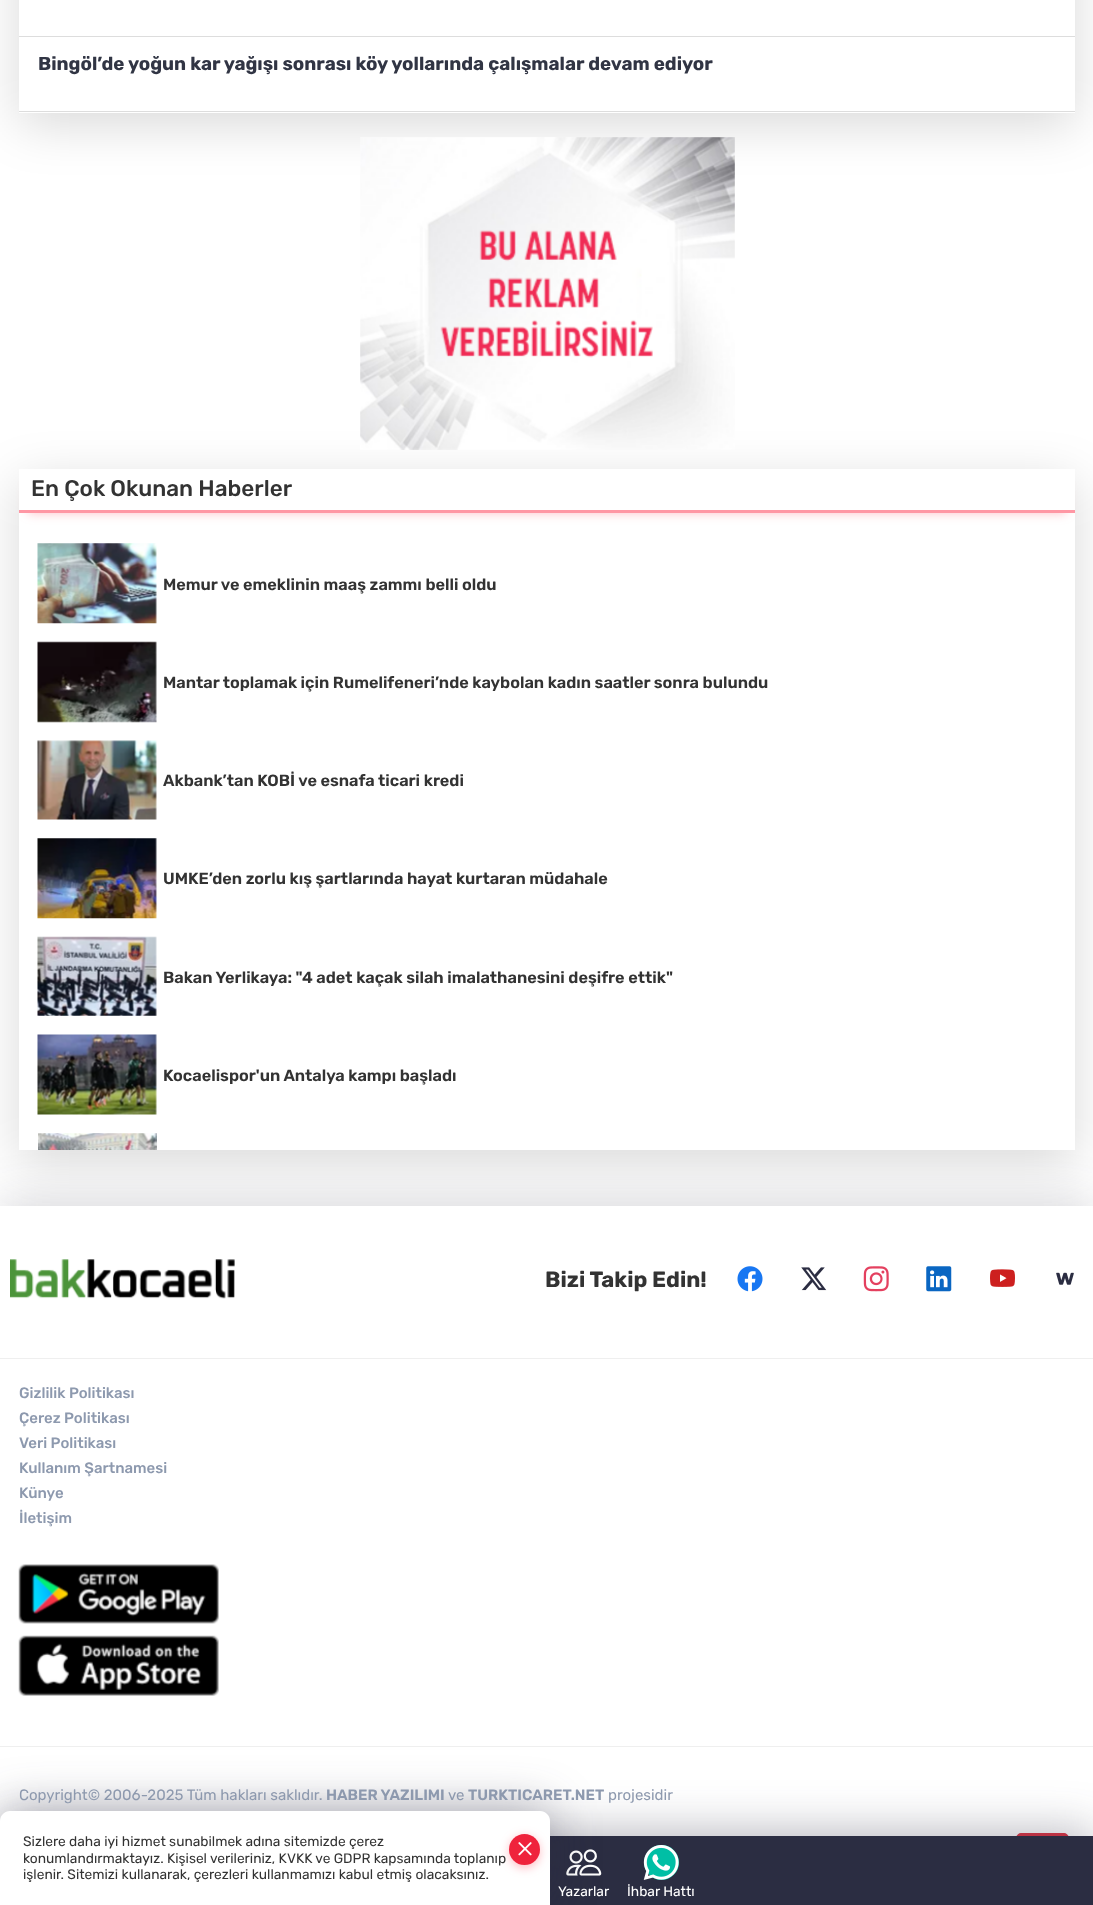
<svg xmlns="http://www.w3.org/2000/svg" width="1093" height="1905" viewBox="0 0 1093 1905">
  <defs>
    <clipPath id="clip1"><path d="M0 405H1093V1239H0ZM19 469H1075V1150H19Z" clip-rule="evenodd"/></clipPath>
    <clipPath id="clip2"><path d="M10 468H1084V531H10ZM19 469H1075V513H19Z" clip-rule="evenodd"/></clipPath>
  </defs>
  <rect width="100%" height="100%" fill="#fff"/>
  <path d="M19 -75h1056v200H19z" fill="#00000026" filter="blur(25px)"/>
  <path d="M19 0h1056v113H19z" fill="#fff"/>
  <path d="M19 36h1056v1H19z" fill="#ddd"/>
  <path d="M19 111h1056v1H19z" fill="#ddd"/>
  <g clip-path="url(#clip1)">
    <path d="M19 481h1056v682H19z" fill="#00000026" filter="blur(25px)"/>
  </g>
  <image x="360" y="137" width="375" height="313" href="img/1.png"/>
  <g clip-path="url(#clip2)">
    <path d="M28 486h1038v27H28z" fill="#ff566a61" filter="blur(5.5px)"/>
  </g>
  <path d="M19 510h1056v3H19z" fill="#ff516799"/>
  <image x="37" y="543" width="120" height="81" href="img/2.png"/>
  <image x="37" y="641" width="120" height="82" href="img/3.png"/>
  <image x="37" y="740" width="120" height="80" href="img/4.png"/>
  <image x="37" y="838" width="120" height="81" href="img/5.png"/>
  <image x="37" y="936" width="120" height="80" href="img/6.png"/>
  <image x="37" y="1034" width="120" height="81" href="img/7.png"/>
  <image x="38" y="1133" width="119" height="17" href="img/8.png"/>
  <path d="M0 1203h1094v698H0z" fill="#2b2d4233" filter="blur(24px)"/>
  <path d="M0 1206h1093v630H0z" fill="#fff"/>
  <path d="M0 1358h1093v1H0z" fill="#efefef"/>
  <image x="10" y="1259" width="225" height="40" href="img/9.png"/>
  <image x="737" y="1266" width="26" height="26" href="img/10.png"/>
  <image x="801" y="1267" width="26" height="24" href="img/11.png"/>
  <image x="863" y="1266" width="26" height="26" href="img/12.png"/>
  <image x="926" y="1266" width="26" height="26" href="img/13.png"/>
  <image x="990" y="1269" width="25" height="18" href="img/14.png"/>
  <image x="1056" y="1272" width="18" height="13" href="img/15.png"/>
  <image x="18" y="1564" width="201" height="60" href="img/16.png"/>
  <image x="18" y="1635" width="201" height="61" href="img/17.png"/>
  <path d="M0 1746h1093v1H0z" fill="#efefef"/>
  <rect x="1016.5" y="1833.5" width="52" height="46" rx="4.5" fill="#dc3545" stroke="#dc3545"/>
  <path d="M0 1833h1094v68H0z" fill="#2b2d425c" filter="blur(24px)"/>
  <path d="M550 1836h543v69H550z" fill="#2b2d42"/>
  <image x="566" y="1849" width="36" height="27" href="img/18.png"/>
  <circle cx="661.5" cy="1862.5" r="17.5" fill="#00bfa5"/>
  <image x="643" y="1845" width="36" height="35" href="img/19.png"/>
  <rect y="1808" width="550" height="93" rx="10" fill="#2b2d425c" filter="blur(24px)"/>
  <path d="M10 1811H540C545.5 1811 550 1815.5 550 1821V1905H0V1821C0 1815.5 4.5 1811 10 1811Z" fill="#fff"/>
  <rect x="509" y="1836" width="31" height="32" rx="15.5" fill="#ff566a61" filter="blur(5px)"/>
  <circle cx="524.5" cy="1849.5" r="15.5" fill="#ef233c"/>
  <image x="518" y="1842" width="14" height="14" href="img/20.png"/>
  <text x="38" y="70" font-family="Rubik" font-size="18.75" font-weight="bold" fill="#313544">Bingöl’de yoğun kar yağışı sonrası köy yollarında çalışmalar devam ediyor</text>
  <text x="31" y="496" font-family="Rubik" font-size="22.5" font-weight="500" fill="#333">En Çok Okunan Haberler</text>
  <g font-family="Rubik" font-size="16.25" font-weight="600" fill="#333">
    <text x="163" y="590">Memur ve emeklinin maaş zammı belli oldu</text>
    <text x="163" y="688">Mantar toplamak için Rumelifeneri’nde kaybolan kadın saatler sonra bulundu</text>
    <text x="163" y="786">Akbank’tan KOBİ ve esnafa ticari kredi</text>
    <text x="163" y="884">UMKE’den zorlu kış şartlarında hayat kurtaran müdahale</text>
    <text x="163" y="983">Bakan Yerlikaya: "4 adet kaçak silah imalathanesini deşifre ettik"</text>
    <text x="163" y="1081">Kocaelispor'un Antalya kampı başladı</text>
  </g>
  <text x="545" y="1287" font-family="Rubik" font-size="22" font-weight="bold" fill="#333">Bizi Takip Edin!</text>
  <g font-family="Rubik" font-size="15" font-weight="500" fill="#8d99ae">
    <text x="19" y="1398">Gizlilik Politikası</text>
    <text x="19" y="1423">Çerez Politikası</text>
    <text x="19" y="1448">Veri Politikası</text>
    <text x="19" y="1473">Kullanım Şartnamesi</text>
    <text x="19" y="1498">Künye</text>
    <text x="19" y="1523">İletişim</text>
  </g>
  <text x="19" y="1800" font-family="Rubik" font-size="15" fill="#8d99ae">Copyright© 2006-2025 Tüm hakları saklıdır.</text>
  <text x="326" y="1800" font-family="Rubik" font-size="15" font-weight="600" fill="#8d99ae">HABER YAZILIMI</text>
  <text x="448" y="1800" font-family="Rubik" font-size="15" fill="#8d99ae">ve</text>
  <text x="468" y="1800" font-family="Rubik" font-size="15" font-weight="600" fill="#8d99ae">TURKTICARET.NET</text>
  <text x="608" y="1800" font-family="Rubik" font-size="15" fill="#8d99ae">projesidir</text>
  <g font-family="Rubik" font-size="13.75" fill="#fff">
    <text x="558" y="1896">Yazarlar</text>
    <text x="627" y="1896">İhbar Hattı</text>
  </g>
  <g font-family="Rubik" font-size="13.75" fill="#333">
    <text x="23" y="1846">Sizlere daha iyi hizmet sunabilmek adına sitemizde çerez</text>
    <text x="23" y="1863">konumlandırmaktayız. Kişisel verileriniz, KVKK ve GDPR kapsamında toplanıp</text>
    <text x="23" y="1879">işlenir. Sitemizi kullanarak, çerezleri kullanmamızı kabul etmiş olacaksınız.</text>
  </g>
</svg>
